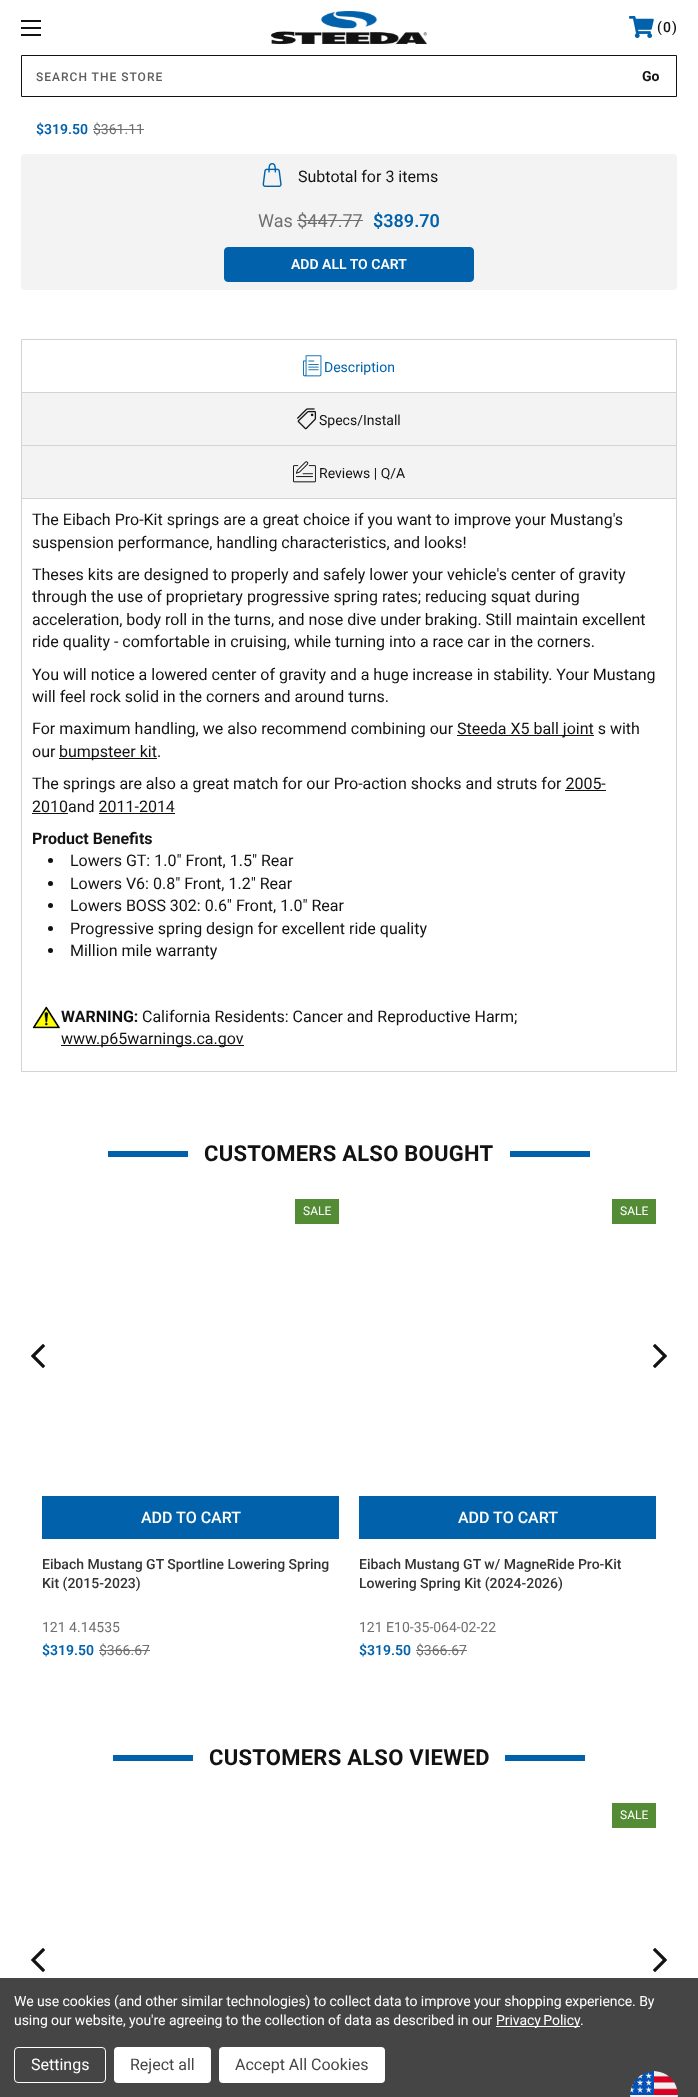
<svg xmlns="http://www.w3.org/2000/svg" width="698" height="2097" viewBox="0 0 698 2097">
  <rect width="100%" height="100%" fill="#fff"/>
  <path d="M21 27h20v2H21z" fill="#121212"/>
  <path d="M21 20h20v2H21z" fill="#121212"/>
  <path d="M21 34h20v2H21z" fill="#121212"/>
  <image x="271" y="11" width="156" height="33" href="img/1.png"/>
  <image x="629" y="16" width="25" height="22" href="img/2.png"/>
  <path d="M21.5 55.5h655v41H21.5z" fill="none" stroke="#121212"/>
  <path d="M93 129h51v1H93z" fill="#6f6f6f"/>
  <rect x="21" y="154" width="656" height="136" rx="4" fill="#f3f3f3"/>
  <image x="262" y="163" width="20" height="24" href="img/3.png"/>
  <path d="M297 220h66v1H297z" fill="#6f6f6f"/>
  <rect x="224.5" y="247.5" width="249" height="34" rx="3.5" fill="#0162ab" stroke="#0162ab"/>
  <path d="M21.5 339.5h655v53H21.5z" fill="none" stroke="#d4d3d3"/>
  <image x="303" y="355" width="19" height="22" href="img/4.png"/>
  <path d="M21.5 392.5h655v53H21.5z" fill="#f3f3f3" stroke="#d4d3d3"/>
  <image x="297" y="408" width="20" height="22" href="img/5.png"/>
  <path d="M21.5 498.5h655v573H21.5z" fill="none" stroke="#d4d3d3"/>
  <path d="M21.5 445.5h655v53H21.5z" fill="#f3f3f3" stroke="#d4d3d3"/>
  <image x="293" y="461" width="23" height="22" href="img/6.png"/>
  <path d="M457 735h137v1H457z" fill="#121212"/>
  <path d="M59 758h98v1H59z" fill="#121212"/>
  <path d="M565 790h41v1H565z" fill="#121212"/>
  <path d="M32 813h36v1H32z" fill="#121212"/>
  <path d="M99 813h76v1H99z" fill="#121212"/>
  <circle cx="50.5" cy="860.5" r="2.5" fill="#121212"/>
  <circle cx="50.5" cy="883.5" r="2.5" fill="#121212"/>
  <circle cx="50.5" cy="905.5" r="2.5" fill="#121212"/>
  <circle cx="50.5" cy="928.5" r="2.5" fill="#121212"/>
  <circle cx="50.5" cy="950.5" r="2.5" fill="#121212"/>
  <image x="32" y="1006" width="28" height="23" href="img/7.png"/>
  <path d="M61 1045h183v1H61z" fill="#121212"/>
  <path d="M108 1151h80v6H108z" fill="#0162ab"/>
  <path d="M510 1151h80v6H510z" fill="#0162ab"/>
  <image x="31" y="1344" width="14" height="24" href="img/8.png"/>
  <path d="M295 1199h44v25H295z" fill="#548c36"/>
  <path d="M42 1496h297v43H42z" fill="#0162ab"/>
  <path d="M99 1650h51v1H99z" fill="#6f6f6f"/>
  <path d="M612 1199h44v25H612z" fill="#548c36"/>
  <path d="M359 1496h297v43H359z" fill="#0162ab"/>
  <path d="M416 1650h51v1H416z" fill="#6f6f6f"/>
  <image x="653" y="1344" width="14" height="24" href="img/9.png"/>
  <path d="M113 1755h80v6H113z" fill="#0162ab"/>
  <path d="M505 1755h80v6H505z" fill="#0162ab"/>
  <path d="M612 1803h44v25H612z" fill="#548c36"/>
  <image x="31" y="1948" width="14" height="24" href="img/8.png"/>
  <image x="653" y="1948" width="14" height="24" href="img/9.png"/>
  <path d="M0 1978h698v119H0z" fill="#454545"/>
  <path d="M496 2026h84v1H496z" fill="#fff"/>
  <rect x="14.5" y="2047.5" width="91" height="35" rx="3.5" fill="none" stroke="#fff"/>
  <rect x="114" y="2047" width="97" height="36" rx="4" fill="#fff"/>
  <rect x="219" y="2047" width="166" height="36" rx="4" fill="#fff"/>
  <image x="630" y="2071" width="48" height="26" href="img/10.png"/>
  <g font-family="Roboto" font-size="14" font-weight="500" fill="#121212">
    <text x="657" y="32">(</text>
    <text x="663" y="32">0</text>
    <text x="672" y="32">)</text>
  </g>
  <text x="36" y="81" font-family="Roboto" font-size="12" font-weight="500" letter-spacing="1" fill="#5d5d5d">SEARCH THE STORE</text>
  <text x="642" y="81" font-family="Roboto" font-size="14" font-weight="bold" fill="#121212">Go</text>
  <text x="36" y="134" font-family="Roboto" font-size="14" font-weight="600" fill="#0162ab">$319.50</text>
  <text x="93" y="134" font-family="Roboto" font-size="14" fill="#6f6f6f">$361.11</text>
  <text x="298" y="182" font-family="Roboto" font-size="16" fill="#121212">Subtotal for 3 items</text>
  <text x="258" y="227" font-family="Roboto" font-size="18" fill="#6f6f6f">Was $447.77</text>
  <text x="373" y="227" font-family="Roboto" font-size="18" font-weight="600" fill="#0162ab">$389.70</text>
  <text x="291" y="269" font-family="Roboto" font-size="14" font-weight="600" fill="#fff">ADD ALL TO CART</text>
  <text x="324" y="372" font-family="Roboto" font-size="14" fill="#0162ab">Description</text>
  <g font-family="Roboto" font-size="14" fill="#121212">
    <text x="319" y="425">Specs/Install</text>
    <text x="319" y="478">Reviews | Q/A</text>
  </g>
  <g font-family="Roboto" font-size="16" fill="#121212">
    <text x="32" y="525">The Eibach Pro-Kit springs are a great choice if you want to improve your Mustang's</text>
    <text x="32" y="548">suspension performance, handling characteristics, and looks!</text>
    <text x="32" y="580">Theses kits are designed to properly and safely lower your vehicle's center of gravity</text>
    <text x="32" y="602">through the use of proprietary progressive spring rates; reducing squat during</text>
    <text x="32" y="625">acceleration, body roll in the turns, and nose dive under braking. Still maintain excellent</text>
    <text x="32" y="647">ride quality - comfortable in cruising, while turning into a race car in the corners.</text>
    <text x="32" y="680">You will notice a lowered center of gravity and a huge increase in stability. Your Mustang</text>
    <text x="32" y="702">will feel rock solid in the corners and around turns.</text>
    <text x="32" y="734">For maximum handling, we also recommend combining our</text>
    <text x="457" y="734">Steeda X5 ball joint s with</text>
    <text x="32" y="757">our</text>
    <text x="59" y="757">bumpsteer kit.</text>
    <text x="32" y="789">The springs are also a great match for our Pro-action shocks and struts for 2005-</text>
    <text x="32" y="812">2010and 2011-2014</text>
  </g>
  <text x="32" y="844" font-family="Roboto" font-size="16" font-weight="bold" fill="#121212">Product Benefits</text>
  <g font-family="Roboto" font-size="16" fill="#121212">
    <text x="70" y="866">Lowers GT: 1.0" Front, 1.5" Rear</text>
    <text x="70" y="889">Lowers V6: 0.8" Front, 1.2" Rear</text>
    <text x="70" y="911">Lowers BOSS 302: 0.6" Front, 1.0" Rear</text>
    <text x="70" y="934">Progressive spring design for excellent ride quality</text>
    <text x="70" y="956">Million mile warranty</text>
  </g>
  <text x="61" y="1022" font-family="Roboto" font-size="16" font-weight="bold" fill="#121212">WARNING:</text>
  <g font-family="Roboto" font-size="16" fill="#121212">
    <text x="142" y="1022">California Residents: Cancer and Reproductive Harm;</text>
    <text x="61" y="1044">www.p65warnings.ca.gov</text>
  </g>
  <text x="204" y="1161" font-family="Roboto" font-size="22" font-weight="bold" letter-spacing="0.25" fill="#121212">CUSTOMERS ALSO BOUGHT</text>
  <text x="303" y="1215" font-family="Roboto" font-size="12" fill="#fff">SALE</text>
  <text x="141" y="1523" font-family="Roboto" font-size="16" font-weight="500" fill="#fff">ADD TO CART</text>
  <g font-family="Roboto" font-size="14" font-weight="500" fill="#333">
    <text x="42" y="1569">Eibach Mustang GT Sportline Lowering Spring</text>
    <text x="42" y="1588">Kit (2015-2023)</text>
  </g>
  <text x="42" y="1632" font-family="Roboto" font-size="14" fill="#6f6f6f">121 4.14535</text>
  <text x="42" y="1655" font-family="Roboto" font-size="14" font-weight="600" fill="#0162ab">$319.50</text>
  <text x="99" y="1655" font-family="Roboto" font-size="14" fill="#6f6f6f">$366.67</text>
  <text x="620" y="1215" font-family="Roboto" font-size="12" fill="#fff">SALE</text>
  <text x="458" y="1523" font-family="Roboto" font-size="16" font-weight="500" fill="#fff">ADD TO CART</text>
  <g font-family="Roboto" font-size="14" font-weight="500" fill="#333">
    <text x="359" y="1569">Eibach Mustang GT w/ MagneRide Pro-Kit</text>
    <text x="359" y="1588">Lowering Spring Kit (2024-2026)</text>
  </g>
  <text x="359" y="1632" font-family="Roboto" font-size="14" fill="#6f6f6f">121 E10-35-064-02-22</text>
  <text x="359" y="1655" font-family="Roboto" font-size="14" font-weight="600" fill="#0162ab">$319.50</text>
  <text x="416" y="1655" font-family="Roboto" font-size="14" fill="#6f6f6f">$366.67</text>
  <text x="209" y="1765" font-family="Roboto" font-size="22" font-weight="bold" letter-spacing="0.25" fill="#121212">CUSTOMERS ALSO VIEWED</text>
  <text x="620" y="1819" font-family="Roboto" font-size="12" fill="#fff">SALE</text>
  <g font-family="Roboto" font-size="14" letter-spacing="-0.05" fill="#fff">
    <text x="14" y="2006">We use cookies (and other similar technologies) to collect data to improve your shopping experience. By</text>
    <text x="14" y="2025">using our website, you're agreeing to the collection of data as described in our</text>
    <text x="496" y="2025" word-spacing="-1">Privacy Policy</text>
    <text x="580" y="2025">.</text>
  </g>
  <text x="31" y="2070" font-family="Roboto" font-size="16" fill="#fff">Settings</text>
  <g font-family="Roboto" font-size="16" fill="#454545">
    <text x="130" y="2070">Reject all</text>
    <text x="235" y="2070">Accept All Cookies</text>
  </g>
</svg>
